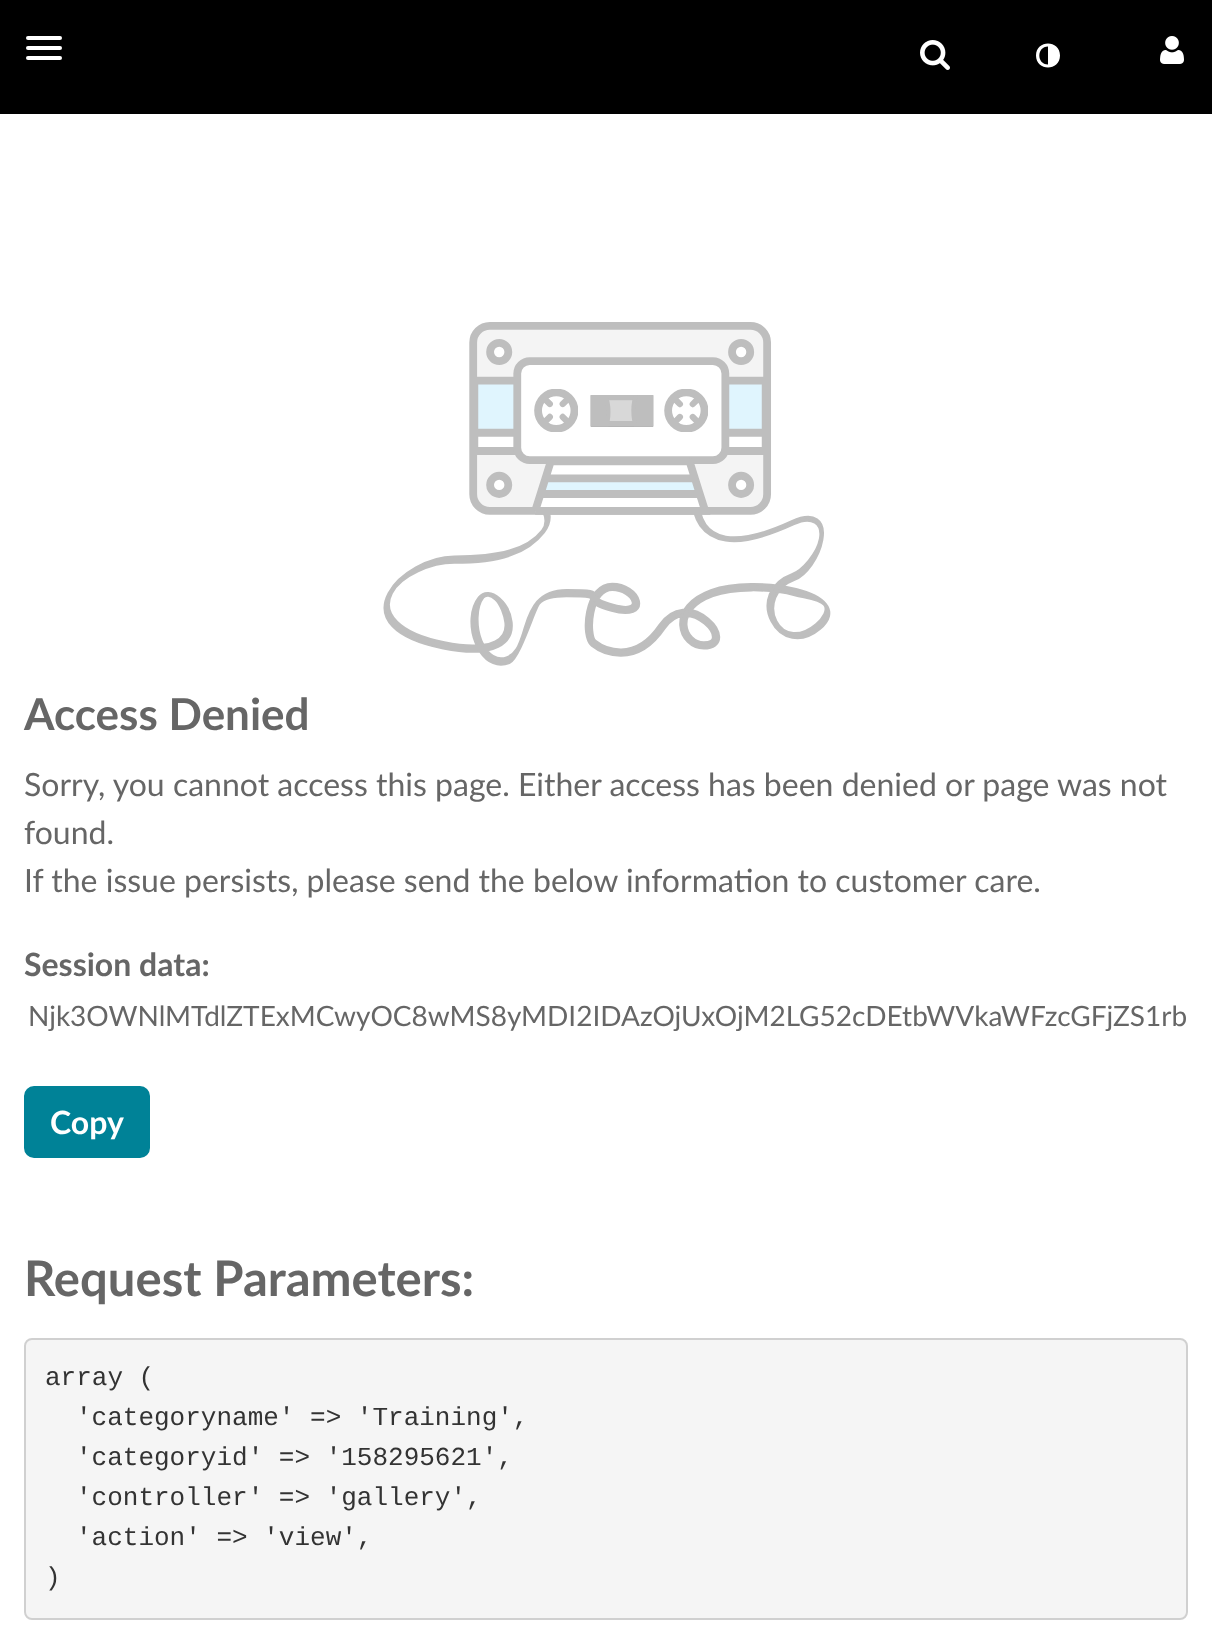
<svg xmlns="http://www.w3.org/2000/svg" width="1212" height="1634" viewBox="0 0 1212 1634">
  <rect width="100%" height="100%" fill="#fff"/>
  <path d="M0 0h1212v114H0z" fill="#000"/>
  <rect x="26" y="36" width="36" height="4" rx="2" fill="#fff"/>
  <rect x="26" y="46" width="36" height="4" rx="2" fill="#fff"/>
  <rect x="26" y="56" width="36" height="4" rx="2" fill="#fff"/>
  <image x="920" y="40" width="30" height="30" href="img/1.png"/>
  <path d="M1048 64.5V46.5C1036.5 46.5 1036.5 64.5 1048 64.5ZM1060 55.5C1060 71.5 1036 71.5 1036 55.5C1036 39.5 1060 39.5 1060 55.5Z" fill="#fff"/>
  <image x="1160" y="36" width="24" height="28" href="img/2.png"/>
  <image x="383" y="322" width="448" height="344" href="img/3.png"/>
  <rect x="25" y="1087" width="124" height="70" rx="9" fill="#008297" stroke="#008297" stroke-width="2"/>
  <rect x="24" y="1338" width="1164" height="282" rx="8" fill="#f5f5f5"/>
  <rect x="25" y="1339" width="1162" height="280" rx="7" fill="none" stroke="#00000026" stroke-width="2"/>
  <text x="24" y="730" font-family="Lato" font-size="44" font-weight="bold" fill="#666">Access Denied</text>
  <g font-family="Lato" font-size="32" fill="#666">
    <text x="24" y="796">Sorry, you cannot access this page. Either access has been denied or page was not</text>
    <text x="24" y="844">found.</text>
    <text x="24" y="892">If the issue persists, please send the below information to customer care.</text>
  </g>
  <text x="24" y="976" font-family="Lato" font-size="32" font-weight="bold" fill="#666">Session data:</text>
  <text x="28" y="1026" font-family="Lato" font-size="28" fill="#666">Njk3OWNlMTdlZTExMCwyOC8wMS8yMDI2IDAzOjUxOjM2LG52cDEtbWVkaWFzcGFjZS1rb</text>
  <text x="50" y="1134" font-family="Lato" font-size="32" font-weight="bold" fill="#fff">Copy</text>
  <text x="24" y="1296" font-family="Lato" font-size="49" font-weight="bold" fill="#666">Request Parameters:</text>
  <g font-family="Liberation Mono" font-size="26" fill="#333">
    <text x="45" y="1385">array (</text>
    <text x="76" y="1425">'categoryname' =&gt; 'Training',</text>
    <text x="76" y="1465">'categoryid' =&gt; '158295621',</text>
    <text x="76" y="1505">'controller' =&gt; 'gallery',</text>
    <text x="76" y="1545">'action' =&gt; 'view',</text>
    <text x="45" y="1585">)</text>
  </g>
</svg>
